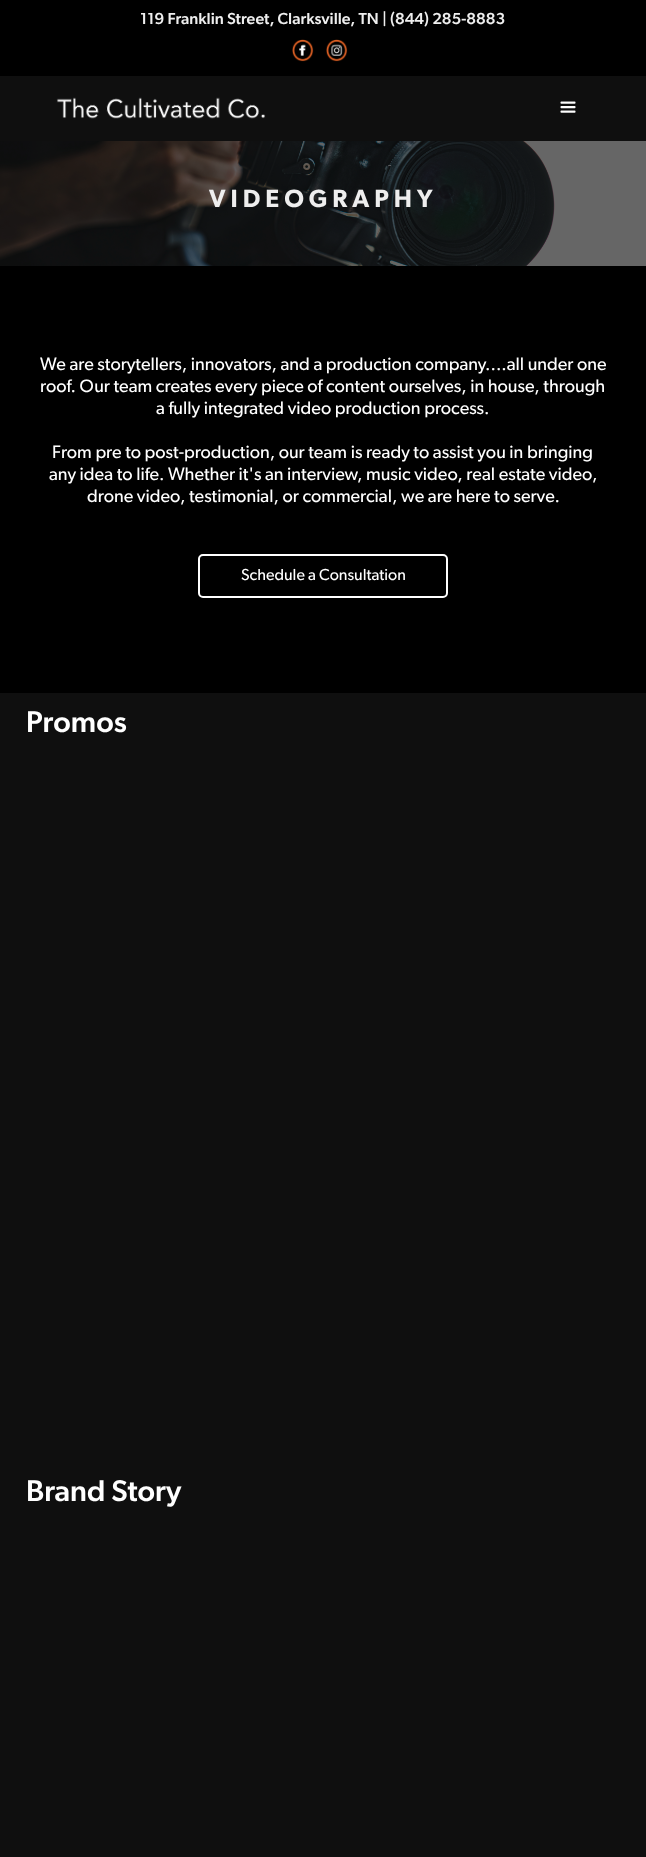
<svg xmlns="http://www.w3.org/2000/svg" width="646" height="1857" viewBox="0 0 646 1857">
  <rect width="100%" height="100%" fill="#0f0f0f"/>
  <path d="M0 0h646v76H0z" fill="#000"/>
  <image x="292" y="39" width="22" height="23" href="img/1.png"/>
  <image x="326" y="39" width="22" height="23" href="img/2.png"/>
  <image x="56" y="97" width="210" height="22" href="img/3.png"/>
  <image x="560" y="101" width="16" height="12" href="img/4.png"/>
  <image x="0" y="141" width="646" height="125" href="img/5.png"/>
  <path d="M0 266h646v427H0z" fill="#000"/>
  <rect x="199" y="555" width="248" height="42" rx="4" fill="none" stroke="#fff" stroke-width="2"/>
  <text x="140" y="24" font-family="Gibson" font-size="16" font-weight="500" fill="#eee">119 Franklin Street, Clarksville, TN | (844) 285-8883</text>
  <text x="209" y="207" font-family="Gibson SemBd" font-size="25" font-weight="600" letter-spacing="5" fill="#eee">VIDEOGRAPHY</text>
  <g font-family="Gibson" font-size="18" fill="#fff">
    <text x="40" y="370">We are storytellers, innovators, and a production company....all under one</text>
    <text x="40" y="392">roof. Our team creates every piece of content ourselves, in house, through</text>
    <text x="156" y="414">a fully integrated video production process.</text>
    <text x="52" y="458">From pre to post-production, our team is ready to assist you in bringing</text>
    <text x="49" y="480">any idea to life. Whether it's an interview, music video, real estate video,</text>
    <text x="87" y="502">drone video, testimonial, or commercial, we are here to serve.</text>
  </g>
  <text x="241" y="580" font-family="Gibson" font-size="16" fill="#fff">Schedule a Consultation</text>
  <g font-family="Gibson" font-size="30" font-weight="500" fill="#fff">
    <text x="26" y="732">Promos</text>
    <text x="26" y="1501">Brand Story</text>
  </g>
</svg>
